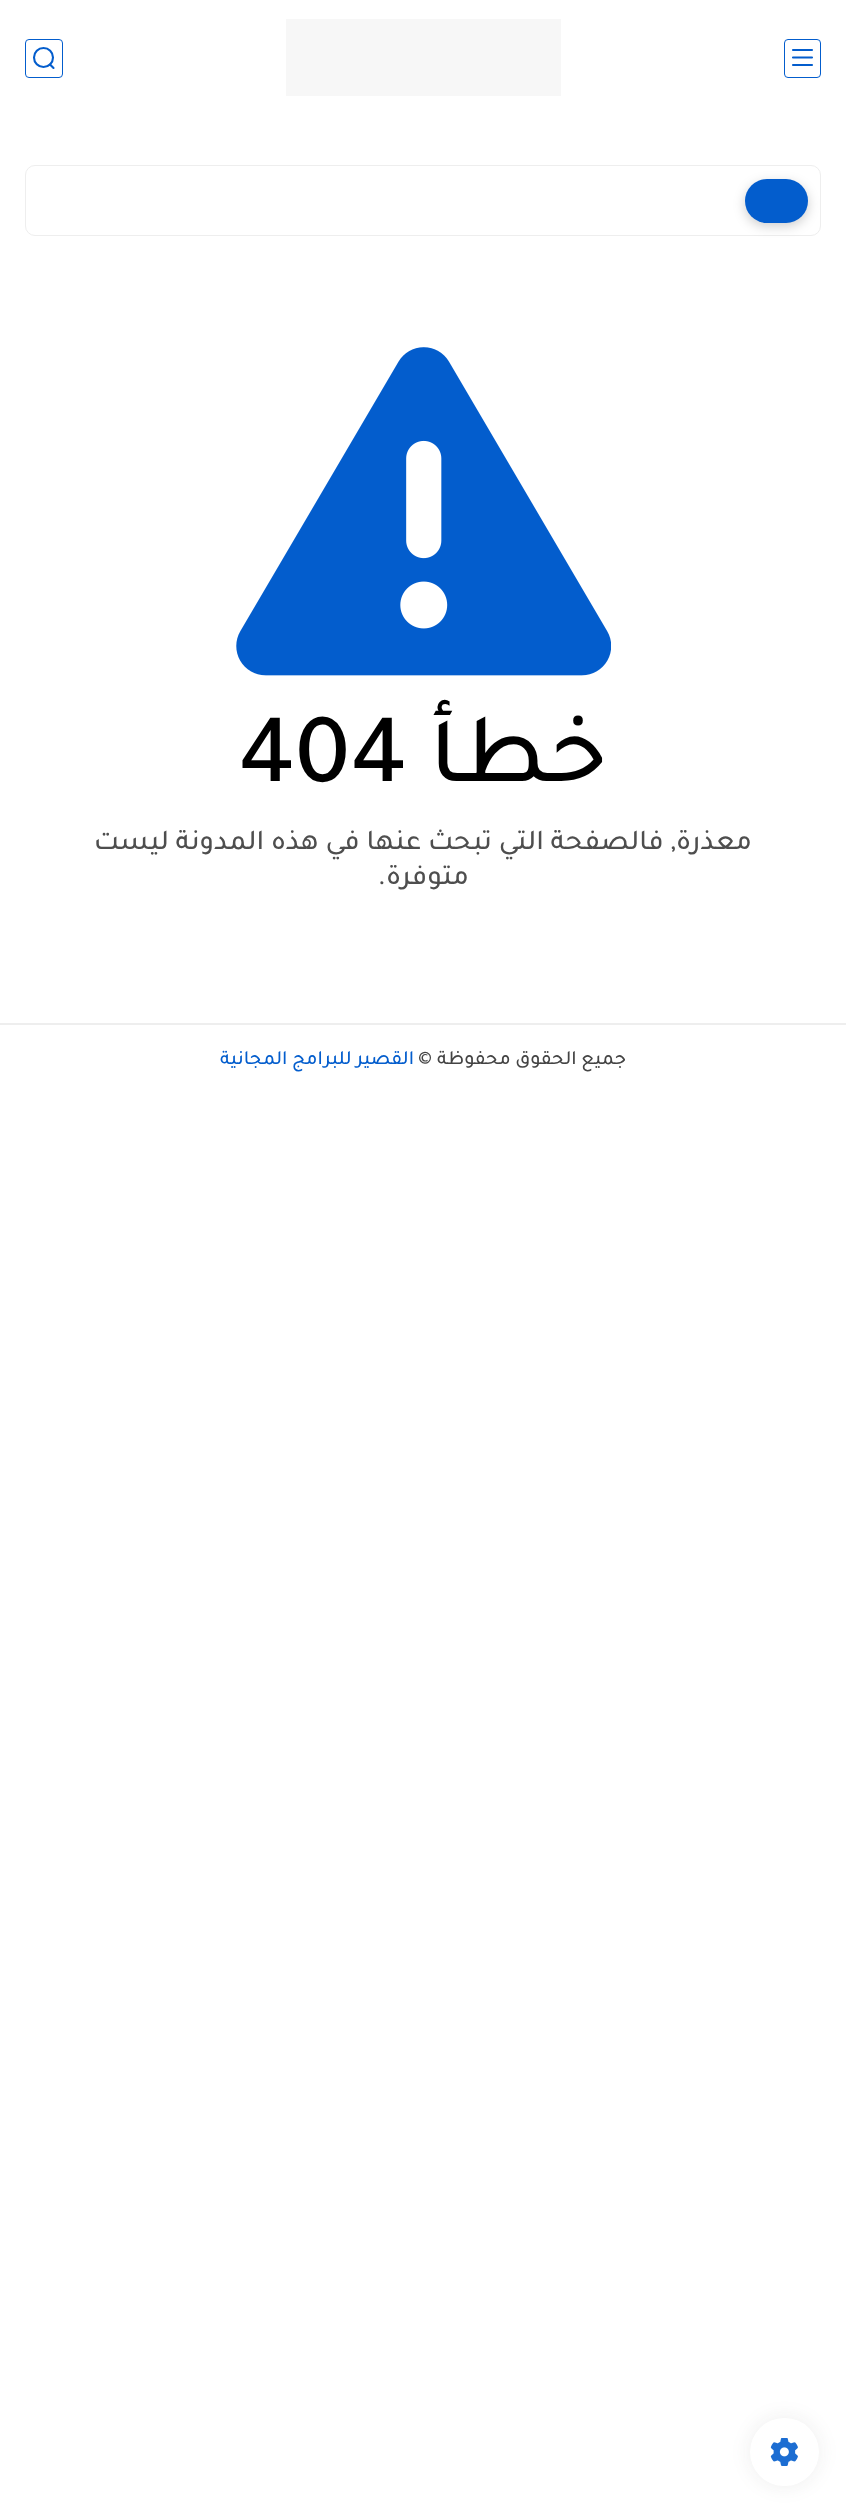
<svg xmlns="http://www.w3.org/2000/svg" width="846" height="2511" viewBox="0 0 846 2511">
  <rect width="100%" height="100%" fill="#fff"/>
  <rect x="784.5" y="39.5" width="36" height="38" rx="3.5" fill="none" stroke="#035dcd"/>
  <path d="M793 57.5H812M793 50H812M793 65H812" fill="none" stroke="#035dcd" stroke-width="2.1" stroke-linecap="round" stroke-linejoin="round"/>
  <path d="M286 19h275v77H286z" fill="#f7f7f7"/>
  <rect x="25.5" y="39.5" width="37" height="38" rx="3.5" fill="none" stroke="#035dcd"/>
  <circle cx="43.5" cy="57.5" r="9.5" fill="none" stroke="#035dcd" stroke-width="2.1"/>
  <path d="M50 64.5L53.5 68" fill="none" stroke="#035dcd" stroke-width="2.1" stroke-linecap="round" stroke-linejoin="round"/>
  <rect x="25.5" y="165.5" width="795" height="70" rx="9.5" fill="none" stroke="#eee"/>
  <rect x="745" y="183" width="63" height="43" rx="21.5" fill="#00000033" filter="blur(6px)"/>
  <rect x="745" y="179" width="63" height="44" rx="22" fill="#035dcd"/>
  <image x="236" y="347" width="375" height="329" href="img/1.png"/>
  <path d="M0 1023h846v2H0z" fill="#eee"/>
  <rect x="750" y="2418" width="69" height="68" rx="34" fill="#1a1a1a14" filter="blur(9.5px)"/>
  <rect x="750" y="2418" width="69" height="68" rx="34" fill="#fff"/>
  <image x="770" y="2438" width="28" height="28" href="img/2.png"/>
  <text x="607" y="781" font-family="Tajawal" font-size="100" font-weight="500" direction="rtl" fill="#000">خطأ</text>
  <text x="239" y="781" font-family="Tajawal" font-size="100" font-weight="500" fill="#000">404</text>
  <g font-family="Tajawal" font-size="28.75" font-weight="500" direction="rtl" fill="#4e4e4e">
    <text x="752" y="849">معذرة, فالصفحة التي تبحث عنها في هذه المدونة ليست</text>
    <text x="469" y="884">متوفرة.</text>
  </g>
  <text x="626" y="1064" font-family="Tajawal" font-size="20" font-weight="500" direction="rtl" fill="#444">جميع الحقوق محفوظة</text>
  <text x="418" y="1064" font-family="Tajawal" font-size="20" font-weight="500" fill="#444">©</text>
  <text x="414" y="1064" font-family="Tajawal" font-size="20" font-weight="500" direction="rtl" fill="#035dcd">القصير للبرامج المجانية</text>
</svg>
